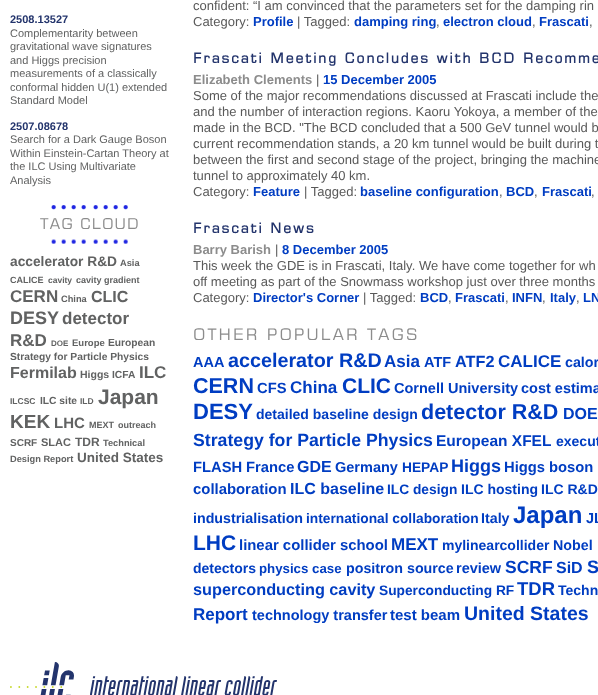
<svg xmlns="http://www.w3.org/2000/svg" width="598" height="695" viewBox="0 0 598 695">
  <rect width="100%" height="100%" fill="#fff"/>
  <image x="51" y="205" width="77" height="39" href="img/1.png"/>
  <image x="10" y="662" width="64" height="33" href="img/2.png"/>
  <image x="90" y="676" width="187" height="19" href="img/3.png"/>
  <text x="10" y="23" font-family="Liberation Sans" font-size="11" font-weight="bold" fill="#23346c">2508.13527</text>
  <g font-family="Liberation Sans" font-size="11" fill="#616262">
    <text x="10" y="37">Complementarity between</text>
    <text x="10" y="50">gravitational wave signatures</text>
    <text x="10" y="64">and Higgs precision</text>
    <text x="10" y="77">measurements of a classically</text>
    <text x="10" y="91">conformal hidden U(1) extended</text>
    <text x="10" y="104">Standard Model</text>
  </g>
  <text x="10" y="130" font-family="Liberation Sans" font-size="11" font-weight="bold" fill="#23346c">2507.08678</text>
  <g font-family="Liberation Sans" font-size="11" fill="#616262">
    <text x="10" y="143">Search for a Dark Gauge Boson</text>
    <text x="10" y="157">Within Einstein-Cartan Theory at</text>
    <text x="10" y="170">the ILC Using Multivariate</text>
    <text x="10" y="184">Analysis</text>
  </g>
  <text x="40" y="229" font-family="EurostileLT" font-size="15" letter-spacing="1" fill="#8c8c8c">TAG CLOUD</text>
  <text x="10" y="266" font-family="Liberation Sans" font-size="13.75" font-weight="bold" fill="#616262">accelerator R&amp;D</text>
  <text x="120" y="266" font-family="Liberation Sans" font-size="9.25" font-weight="bold" fill="#616262">Asia</text>
  <text x="10" y="283" font-family="Liberation Sans" font-size="9" font-weight="bold" fill="#616262">CALICE</text>
  <text x="48" y="283" font-family="Liberation Sans" font-size="8.5" font-weight="bold" fill="#616262">cavity</text>
  <text x="76" y="283" font-family="Liberation Sans" font-size="9" font-weight="bold" fill="#616262">cavity gradient</text>
  <text x="10" y="302" font-family="Liberation Sans" font-size="17" font-weight="bold" fill="#616262">CERN</text>
  <text x="61" y="302" font-family="Liberation Sans" font-size="9.25" font-weight="bold" fill="#616262">China</text>
  <text x="91" y="302" font-family="Liberation Sans" font-size="16" font-weight="bold" fill="#616262">CLIC</text>
  <text x="10" y="324" font-family="Liberation Sans" font-size="18" font-weight="bold" fill="#616262">DESY</text>
  <g font-family="Liberation Sans" font-size="17" font-weight="bold" fill="#616262">
    <text x="62" y="324">detector</text>
    <text x="10" y="346">R&amp;D</text>
  </g>
  <text x="51" y="346" font-family="Liberation Sans" font-size="8" font-weight="bold" fill="#616262">DOE</text>
  <text x="72" y="346" font-family="Liberation Sans" font-size="9.5" font-weight="bold" fill="#616262">Europe</text>
  <g font-family="Liberation Sans" font-size="10.25" font-weight="bold" fill="#616262">
    <text x="108" y="346">European</text>
    <text x="10" y="360">Strategy for Particle Physics</text>
  </g>
  <text x="10" y="378" font-family="Liberation Sans" font-size="16" font-weight="bold" fill="#616262">Fermilab</text>
  <text x="80" y="378" font-family="Liberation Sans" font-size="10.5" font-weight="bold" fill="#616262">Higgs</text>
  <text x="112" y="378" font-family="Liberation Sans" font-size="10.25" font-weight="bold" fill="#616262">ICFA</text>
  <text x="139" y="378" font-family="Liberation Sans" font-size="17" font-weight="bold" fill="#616262">ILC</text>
  <text x="10" y="404" font-family="Liberation Sans" font-size="8.5" font-weight="bold" fill="#616262">ILCSC</text>
  <text x="40" y="404" font-family="Liberation Sans" font-size="10.25" font-weight="bold" fill="#616262">ILC site</text>
  <text x="80" y="404" font-family="Liberation Sans" font-size="8.5" font-weight="bold" fill="#616262">ILD</text>
  <text x="98" y="404" font-family="Liberation Sans" font-size="21" font-weight="bold" fill="#616262">Japan</text>
  <text x="10" y="428" font-family="Liberation Sans" font-size="19" font-weight="bold" fill="#616262">KEK</text>
  <text x="54" y="428" font-family="Liberation Sans" font-size="15" font-weight="bold" fill="#616262">LHC</text>
  <g font-family="Liberation Sans" font-size="9" font-weight="bold" fill="#616262">
    <text x="89" y="428">MEXT</text>
    <text x="118" y="428">outreach</text>
  </g>
  <text x="10" y="446" font-family="Liberation Sans" font-size="10" font-weight="bold" fill="#616262">SCRF</text>
  <text x="41" y="446" font-family="Liberation Sans" font-size="11" font-weight="bold" fill="#616262">SLAC</text>
  <text x="75" y="446" font-family="Liberation Sans" font-size="12" font-weight="bold" fill="#616262">TDR</text>
  <g font-family="Liberation Sans" font-size="9.25" font-weight="bold" fill="#616262">
    <text x="103" y="446">Technical</text>
    <text x="10" y="462">Design Report</text>
  </g>
  <text x="77" y="462" font-family="Liberation Sans" font-size="13.5" font-weight="bold" fill="#616262">United States</text>
  <g font-family="Liberation Sans" font-size="13" fill="#595959">
    <text x="193" y="10">confident: “I am convinced that the parameters set for the damping rin</text>
    <text x="193" y="26">Category:</text>
  </g>
  <text x="253" y="26" font-family="Liberation Sans" font-size="13" font-weight="bold" fill="#003dc2">Profile</text>
  <text x="297" y="26" font-family="Liberation Sans" font-size="13" fill="#595959">| Tagged:</text>
  <text x="354" y="26" font-family="Liberation Sans" font-size="13" font-weight="bold" fill="#003dc2">damping ring</text>
  <text x="436" y="26" font-family="Liberation Sans" font-size="13" fill="#595959">,</text>
  <text x="443" y="26" font-family="Liberation Sans" font-size="13" font-weight="bold" fill="#003dc2">electron cloud</text>
  <text x="532" y="26" font-family="Liberation Sans" font-size="13" fill="#595959">,</text>
  <text x="539" y="26" font-family="Liberation Sans" font-size="13" font-weight="bold" fill="#003dc2">Frascati</text>
  <text x="589" y="26" font-family="Liberation Sans" font-size="13" fill="#595959">,</text>
  <text x="193" y="63" font-family="EurostileLT" font-size="14" font-weight="bold" letter-spacing="2" fill="#23346c">Frascati Meeting Concludes with BCD Recomme</text>
  <text x="193" y="84" font-family="Liberation Sans" font-size="13" font-weight="bold" fill="#8c8c8c">Elizabeth Clements</text>
  <text x="316" y="84" font-family="Liberation Sans" font-size="13" fill="#595959">|</text>
  <text x="323" y="84" font-family="Liberation Sans" font-size="13" font-weight="bold" fill="#003dc2">15 December 2005</text>
  <g font-family="Liberation Sans" font-size="13" fill="#595959">
    <text x="193" y="100">Some of the major recommendations discussed at Frascati include the</text>
    <text x="193" y="116">and the number of interaction regions. Kaoru Yokoya, a member of the</text>
    <text x="193" y="132">made in the BCD. "The BCD concluded that a 500 GeV tunnel would b</text>
    <text x="193" y="148">current recommendation stands, a 20 km tunnel would be built during t</text>
    <text x="193" y="164">between the first and second stage of the project, bringing the machine</text>
    <text x="193" y="180">tunnel to approximately 40 km.</text>
    <text x="193" y="196">Category:</text>
  </g>
  <text x="253" y="196" font-family="Liberation Sans" font-size="13" font-weight="bold" fill="#003dc2">Feature</text>
  <text x="304" y="196" font-family="Liberation Sans" font-size="13" fill="#595959">| Tagged:</text>
  <text x="360" y="196" font-family="Liberation Sans" font-size="13" font-weight="bold" fill="#003dc2">baseline configuration</text>
  <text x="499" y="196" font-family="Liberation Sans" font-size="13" fill="#595959">,</text>
  <text x="506" y="196" font-family="Liberation Sans" font-size="13" font-weight="bold" fill="#003dc2">BCD</text>
  <text x="534" y="196" font-family="Liberation Sans" font-size="13" fill="#595959">,</text>
  <text x="542" y="196" font-family="Liberation Sans" font-size="13" font-weight="bold" fill="#003dc2">Frascati</text>
  <text x="591" y="196" font-family="Liberation Sans" font-size="13" fill="#595959">,</text>
  <text x="193" y="233" font-family="EurostileLT" font-size="14" font-weight="bold" letter-spacing="2" fill="#23346c">Frascati News</text>
  <text x="193" y="254" font-family="Liberation Sans" font-size="13" font-weight="bold" fill="#8c8c8c">Barry Barish</text>
  <text x="275" y="254" font-family="Liberation Sans" font-size="13" fill="#595959">|</text>
  <text x="282" y="254" font-family="Liberation Sans" font-size="13" font-weight="bold" fill="#003dc2">8 December 2005</text>
  <g font-family="Liberation Sans" font-size="13" fill="#595959">
    <text x="193" y="270">This week the GDE is in Frascati, Italy. We have come together for wh</text>
    <text x="193" y="286">off meeting as part of the Snowmass workshop just over three months</text>
    <text x="193" y="302">Category:</text>
  </g>
  <text x="253" y="302" font-family="Liberation Sans" font-size="13" font-weight="bold" fill="#003dc2">Director's Corner</text>
  <text x="363" y="302" font-family="Liberation Sans" font-size="13" fill="#595959">| Tagged:</text>
  <text x="420" y="302" font-family="Liberation Sans" font-size="13" font-weight="bold" fill="#003dc2">BCD</text>
  <text x="448" y="302" font-family="Liberation Sans" font-size="13" fill="#595959">,</text>
  <text x="455" y="302" font-family="Liberation Sans" font-size="13" font-weight="bold" fill="#003dc2">Frascati</text>
  <text x="505" y="302" font-family="Liberation Sans" font-size="13" fill="#595959">,</text>
  <text x="512" y="302" font-family="Liberation Sans" font-size="13" font-weight="bold" fill="#003dc2">INFN</text>
  <text x="542" y="302" font-family="Liberation Sans" font-size="13" fill="#595959">,</text>
  <text x="550" y="302" font-family="Liberation Sans" font-size="13" font-weight="bold" fill="#003dc2">Italy</text>
  <text x="576" y="302" font-family="Liberation Sans" font-size="13" fill="#595959">,</text>
  <text x="583" y="302" font-family="Liberation Sans" font-size="13" font-weight="bold" fill="#003dc2">LN</text>
  <text x="193" y="340" font-family="EurostileLT" font-size="16" letter-spacing="2" fill="#8c8c8c">OTHER POPULAR TAGS</text>
  <text x="193" y="367" font-family="Liberation Sans" font-size="14.5" font-weight="bold" fill="#003dc2">AAA</text>
  <text x="228" y="367" font-family="Liberation Sans" font-size="19.75" font-weight="bold" fill="#003dc2">accelerator R&amp;D</text>
  <text x="384" y="367" font-family="Liberation Sans" font-size="17" font-weight="bold" fill="#003dc2">Asia</text>
  <text x="424" y="367" font-family="Liberation Sans" font-size="14.5" font-weight="bold" fill="#003dc2">ATF</text>
  <text x="455" y="367" font-family="Liberation Sans" font-size="16.25" font-weight="bold" fill="#003dc2">ATF2</text>
  <text x="498" y="367" font-family="Liberation Sans" font-size="17" font-weight="bold" fill="#003dc2">CALICE</text>
  <text x="565" y="367" font-family="Liberation Sans" font-size="14.25" font-weight="bold" fill="#003dc2">calor</text>
  <text x="193" y="393" font-family="Liberation Sans" font-size="21.5" font-weight="bold" fill="#003dc2">CERN</text>
  <text x="257" y="393" font-family="Liberation Sans" font-size="14.75" font-weight="bold" fill="#003dc2">CFS</text>
  <text x="290" y="393" font-family="Liberation Sans" font-size="17" font-weight="bold" fill="#003dc2">China</text>
  <text x="342" y="393" font-family="Liberation Sans" font-size="21" font-weight="bold" fill="#003dc2">CLIC</text>
  <g font-family="Liberation Sans" font-size="14.5" font-weight="bold" fill="#003dc2">
    <text x="394" y="393">Cornell University</text>
    <text x="521" y="393">cost estima</text>
  </g>
  <text x="193" y="419" font-family="Liberation Sans" font-size="22" font-weight="bold" fill="#003dc2">DESY</text>
  <text x="256" y="419" font-family="Liberation Sans" font-size="14" font-weight="bold" fill="#003dc2">detailed baseline design</text>
  <text x="421" y="419" font-family="Liberation Sans" font-size="21.5" font-weight="bold" fill="#003dc2">detector R&amp;D</text>
  <text x="563" y="419" font-family="Liberation Sans" font-size="16" font-weight="bold" fill="#003dc2">DOE</text>
  <text x="193" y="446" font-family="Liberation Sans" font-size="17.7" font-weight="bold" fill="#003dc2">Strategy for Particle Physics</text>
  <text x="436" y="446" font-family="Liberation Sans" font-size="15.5" font-weight="bold" fill="#003dc2">European XFEL</text>
  <text x="556" y="446" font-family="Liberation Sans" font-size="14" font-weight="bold" fill="#003dc2">execut</text>
  <g font-family="Liberation Sans" font-size="14.75" font-weight="bold" fill="#003dc2">
    <text x="193" y="472">FLASH</text>
    <text x="246" y="472">France</text>
  </g>
  <text x="297" y="472" font-family="Liberation Sans" font-size="16" font-weight="bold" fill="#003dc2">GDE</text>
  <text x="335" y="472" font-family="Liberation Sans" font-size="14.5" font-weight="bold" fill="#003dc2">Germany</text>
  <text x="402" y="472" font-family="Liberation Sans" font-size="13.75" font-weight="bold" fill="#003dc2">HEPAP</text>
  <text x="451" y="472" font-family="Liberation Sans" font-size="18" font-weight="bold" fill="#003dc2">Higgs</text>
  <text x="504" y="472" font-family="Liberation Sans" font-size="14.75" font-weight="bold" fill="#003dc2">Higgs boson</text>
  <text x="193" y="494" font-family="Liberation Sans" font-size="14.9" font-weight="bold" fill="#003dc2">collaboration</text>
  <text x="290" y="494" font-family="Liberation Sans" font-size="16" font-weight="bold" fill="#003dc2">ILC baseline</text>
  <text x="387" y="494" font-family="Liberation Sans" font-size="13.75" font-weight="bold" fill="#003dc2">ILC design</text>
  <g font-family="Liberation Sans" font-size="14" font-weight="bold" fill="#003dc2">
    <text x="461" y="494">ILC hosting</text>
    <text x="541" y="494">ILC R&amp;D</text>
  </g>
  <text x="193" y="523" font-family="Liberation Sans" font-size="14.25" font-weight="bold" fill="#003dc2">industrialisation</text>
  <text x="306" y="523" font-family="Liberation Sans" font-size="13.75" font-weight="bold" fill="#003dc2">international collaboration</text>
  <text x="481" y="523" font-family="Liberation Sans" font-size="14.25" font-weight="bold" fill="#003dc2">Italy</text>
  <text x="513" y="523" font-family="Liberation Sans" font-size="24" font-weight="bold" fill="#003dc2">Japan</text>
  <text x="586" y="523" font-family="Liberation Sans" font-size="14.5" font-weight="bold" fill="#003dc2">JL</text>
  <text x="193" y="550" font-family="Liberation Sans" font-size="21" font-weight="bold" fill="#003dc2">LHC</text>
  <text x="239" y="550" font-family="Liberation Sans" font-size="14.9" font-weight="bold" fill="#003dc2">linear collider school</text>
  <text x="391" y="550" font-family="Liberation Sans" font-size="17" font-weight="bold" fill="#003dc2">MEXT</text>
  <text x="442" y="550" font-family="Liberation Sans" font-size="14" font-weight="bold" fill="#003dc2">mylinearcollider</text>
  <text x="553" y="550" font-family="Liberation Sans" font-size="14.25" font-weight="bold" fill="#003dc2">Nobel</text>
  <text x="193" y="573" font-family="Liberation Sans" font-size="14" font-weight="bold" fill="#003dc2">detectors</text>
  <text x="259" y="573" font-family="Liberation Sans" font-size="13.25" font-weight="bold" fill="#003dc2">physics case</text>
  <text x="346" y="573" font-family="Liberation Sans" font-size="14.25" font-weight="bold" fill="#003dc2">positron source</text>
  <text x="456" y="573" font-family="Liberation Sans" font-size="14.5" font-weight="bold" fill="#003dc2">review</text>
  <text x="505" y="573" font-family="Liberation Sans" font-size="17.5" font-weight="bold" fill="#003dc2">SCRF</text>
  <text x="556" y="573" font-family="Liberation Sans" font-size="16" font-weight="bold" fill="#003dc2">SiD</text>
  <text x="587" y="573" font-family="Liberation Sans" font-size="18" font-weight="bold" fill="#003dc2">S</text>
  <text x="193" y="595" font-family="Liberation Sans" font-size="16.25" font-weight="bold" fill="#003dc2">superconducting cavity</text>
  <text x="379" y="595" font-family="Liberation Sans" font-size="13.75" font-weight="bold" fill="#003dc2">Superconducting RF</text>
  <text x="517" y="595" font-family="Liberation Sans" font-size="18.5" font-weight="bold" fill="#003dc2">TDR</text>
  <text x="558" y="595" font-family="Liberation Sans" font-size="14" font-weight="bold" fill="#003dc2">Techn</text>
  <text x="193" y="620" font-family="Liberation Sans" font-size="17" font-weight="bold" fill="#003dc2">Report</text>
  <text x="252" y="620" font-family="Liberation Sans" font-size="14.5" font-weight="bold" fill="#003dc2">technology transfer</text>
  <text x="390" y="620" font-family="Liberation Sans" font-size="15" font-weight="bold" fill="#003dc2">test beam</text>
  <text x="464" y="620" font-family="Liberation Sans" font-size="19.5" font-weight="bold" fill="#003dc2">United States</text>
</svg>
